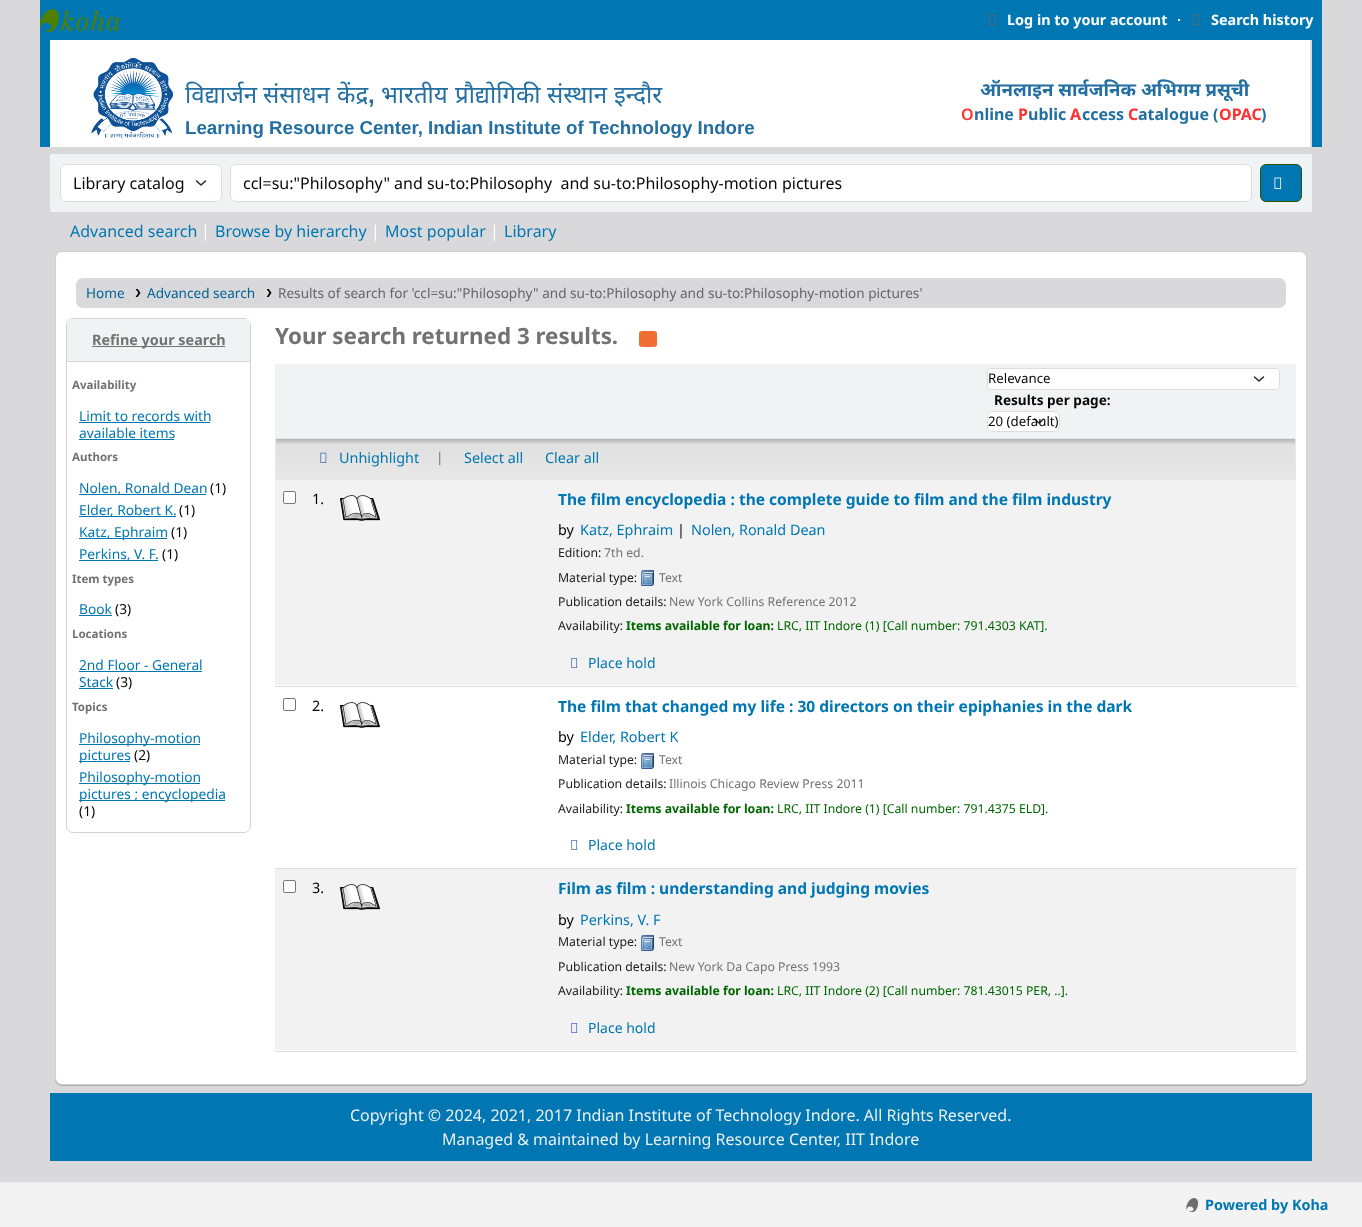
<svg xmlns="http://www.w3.org/2000/svg" width="1362" height="1227" viewBox="0 0 1362 1227">
  <defs>
    <linearGradient id="g1" gradientUnits="userSpaceOnUse" x1="786" y1="439" x2="786" y2="479"><stop offset="0" stop-color="#b2b2b2"/><stop offset="0.14" stop-color="#e0e0e0"/><stop offset="1" stop-color="#e8e8e8"/></linearGradient>
  </defs>
  <rect width="100%" height="100%" fill="#d9d9dc"/>
  <path d="M40 0h1282v147H40z" fill="#0076b2"/>
  <image x="40" y="9" width="80" height="23" href="img/1.png"/>
  <image x="989" y="14" width="7" height="11" href="img/2.png"/>
  <path d="M1178 19h2v1H1178z" fill="#eee"/>
  <path d="M1179 19h1v2H1179z" fill="#fcf9fc"/>
  <path d="M1178 20h2v1H1178z" fill="#eee"/>
  <image x="1193" y="14" width="7" height="11" href="img/2.png"/>
  <path d="M1310 40h2v107H1310z" fill="#ddd"/>
  <path d="M50 40h1260v107H50z" fill="#fff"/>
  <image x="91" y="58" width="82" height="81" href="img/3.png"/>
  <rect x="50" y="154" width="1262" height="58" rx="2" fill="#f0f3f3"/>
  <rect x="60" y="164" width="162" height="38" rx="6" fill="#fff"/>
  <path d="M196.5 181L201 185L205.5 181" fill="none" stroke="#252525" stroke-width="1.5" stroke-linecap="round" stroke-linejoin="round"/>
  <rect x="60.5" y="164.5" width="161" height="37" rx="5.5" fill="none" stroke="#ddd"/>
  <rect x="230.5" y="164.5" width="1021" height="37" rx="5.5" fill="#fff" stroke="#ddd"/>
  <rect x="1260.5" y="164.5" width="41" height="37" rx="5.5" fill="#0076b2" stroke="#335000"/>
  <image x="1274" y="177" width="8" height="12" href="img/4.png"/>
  <rect x="55" y="252" width="1252" height="834" rx="7" fill="#00000033" filter="blur(0.5px)"/>
  <rect x="55.5" y="251.5" width="1251" height="833" rx="6.5" fill="#fff" stroke="#d2d2cf"/>
  <rect x="76" y="278" width="1210" height="30" rx="7" fill="#d9d9dc"/>
  <image x="135" y="289" width="6" height="8" href="img/5.png"/>
  <image x="266" y="289" width="6" height="8" href="img/5.png"/>
  <rect x="66.5" y="318.5" width="184" height="514" rx="6.5" fill="none" stroke="#d2d2cf"/>
  <path d="M67 319h183v42H67z" fill="#f0f3f3"/>
  <path d="M67 361h183v1H67z" fill="#d8d8d8"/>
  <path d="M92 346h133v1H92z" fill="#727272"/>
  <path d="M79 422h131v1H79z" fill="#0076b2"/>
  <path d="M79 439h95v1H79z" fill="#0076b2"/>
  <path d="M79 494h127v1H79z" fill="#0076b2"/>
  <path d="M79 516h97v1H79z" fill="#0076b2"/>
  <path d="M79 538h88v1H79z" fill="#0076b2"/>
  <path d="M79 560h79v1H79z" fill="#0076b2"/>
  <path d="M79 615h33v1H79z" fill="#0076b2"/>
  <path d="M79 671h123v1H79z" fill="#0076b2"/>
  <path d="M79 688h34v1H79z" fill="#0076b2"/>
  <path d="M79 744h121v1H79z" fill="#0076b2"/>
  <path d="M79 761h51v1H79z" fill="#0076b2"/>
  <path d="M79 783h121v1H79z" fill="#0076b2"/>
  <path d="M79 800h146v1H79z" fill="#0076b2"/>
  <rect x="639" y="331" width="18" height="16" rx="3" fill="#f06d34"/>
  <path d="M275 364h1021v74H275z" fill="#f0f3f3"/>
  <rect x="987" y="368" width="293" height="22" rx="4" fill="#fff"/>
  <path d="M1254.5 377L1259 381L1263.5 377" fill="none" stroke="#252525" stroke-width="1.5" stroke-linecap="round" stroke-linejoin="round"/>
  <rect x="987.5" y="368.5" width="292" height="21" rx="3.5" fill="none" stroke="#ddd"/>
  <rect x="987" y="411" width="73" height="21" rx="6" fill="#fff"/>
  <path d="M1034.5 419L1039 423L1043.5 419" fill="none" stroke="#252525" stroke-width="1.5" stroke-linecap="round" stroke-linejoin="round"/>
  <rect x="987.5" y="411.5" width="72" height="20" rx="5.5" fill="none" stroke="#ddd"/>
  <path d="M276 439h1019v40H276z" fill="url(#g1)"/>
  <path d="M275.5 438.5h1020v41H275.5z" fill="none" stroke="#e8e8e8"/>
  <image x="320" y="452" width="7" height="11" href="img/6.png"/>
  <path d="M275 480h1021v205H275z" fill="#f2f2f2"/>
  <rect x="283.5" y="491.5" width="12" height="12" rx="1.5" fill="#fff" stroke="#767676"/>
  <image x="340" y="495" width="40" height="26" href="img/7.png"/>
  <path d="M275 686h1022v1H275z" fill="#ddd"/>
  <image x="641" y="570" width="13" height="16" href="img/8.png"/>
  <image x="571" y="658" width="7" height="10" href="img/9.png"/>
  <rect x="283.5" y="698.5" width="12" height="12" rx="1.5" fill="none" stroke="#767676"/>
  <image x="340" y="702" width="40" height="26" href="img/10.png"/>
  <path d="M275 868h1022v1H275z" fill="#ddd"/>
  <image x="641" y="753" width="13" height="16" href="img/11.png"/>
  <image x="571" y="840" width="7" height="10" href="img/12.png"/>
  <path d="M275 869h1021v181H275z" fill="#f2f2f2"/>
  <rect x="283.5" y="880.5" width="12" height="12" rx="1.5" fill="#fff" stroke="#767676"/>
  <image x="340" y="884" width="40" height="26" href="img/7.png"/>
  <path d="M275 1051h1022v1H275z" fill="#ddd"/>
  <image x="641" y="935" width="13" height="16" href="img/8.png"/>
  <image x="571" y="1023" width="7" height="10" href="img/9.png"/>
  <path d="M50 1093h1262v68H50z" fill="#0076b2"/>
  <path d="M0 1183h1362v44H0z" fill="#f3f3f3"/>
  <path d="M0 1182h1362v1H0z" fill="#eee"/>
  <image x="1186" y="1198" width="13" height="14" href="img/13.png"/>
  <g font-family="Noto Sans" font-size="14.4" font-weight="bold" fill="#fff">
    <text x="1007" y="25">Log in to your account</text>
    <text x="1211" y="25">Search history</text>
  </g>
  <g font-family="Noto Sans" font-size="24" fill="#236fa1">
    <text x="185" y="103">विद्यार्जन</text>
    <text x="263" y="103">संसाधन</text>
    <text x="337" y="103">केंद्र</text>
  </g>
  <text x="368" y="103" font-family="Liberation Sans" font-size="24" font-weight="bold" fill="#236fa1">,</text>
  <g font-family="Noto Sans" font-size="24" fill="#236fa1">
    <text x="381" y="103">भारतीय</text>
    <text x="455" y="103">प्रौद्योगिकी</text>
    <text x="547" y="103">संस्थान</text>
    <text x="614" y="103">इन्दौर</text>
  </g>
  <text x="185" y="134" font-family="Liberation Sans" font-size="18.7" font-weight="bold" fill="#236fa1">Learning Resource Center, Indian Institute of Technology Indore</text>
  <text x="980" y="96" font-family="Noto Sans" font-size="18.7" font-weight="bold" fill="#236fa1">ऑनलाइन सार्वजनिक अभिगम प्रसूची</text>
  <text x="961" y="120" font-family="Noto Sans" font-size="16" font-weight="600" fill="#ff3131">O</text>
  <text x="974" y="120" font-family="Noto Sans" font-size="16" font-weight="bold" fill="#236fa1">nline</text>
  <text x="1018" y="120" font-family="Noto Sans" font-size="16" font-weight="bold" fill="#ff3131">P</text>
  <text x="1028" y="120" font-family="Noto Sans" font-size="16" font-weight="bold" fill="#236fa1">ublic</text>
  <text x="1070" y="120" font-family="Noto Sans" font-size="16" font-weight="bold" fill="#ff3131">A</text>
  <text x="1082" y="120" font-family="Noto Sans" font-size="16" font-weight="bold" fill="#236fa1">ccess</text>
  <text x="1128" y="120" font-family="Noto Sans" font-size="16" font-weight="bold" fill="#ff3131">C</text>
  <text x="1138" y="120" font-family="Noto Sans" font-size="16" font-weight="bold" fill="#236fa1">atalogue (</text>
  <text x="1219" y="120" font-family="Noto Sans" font-size="16" font-weight="bold" fill="#ff3131">OPAC</text>
  <text x="1261" y="120" font-family="Noto Sans" font-size="16" font-weight="bold" fill="#236fa1">)</text>
  <g font-family="Noto Sans" font-size="16" fill="#070707">
    <text x="73" y="189">Library catalog</text>
    <text x="243" y="189" xml:space="preserve">ccl=su:"Philosophy" and su-to:Philosophy  and su-to:Philosophy-motion pictures</text>
  </g>
  <text x="70" y="237" font-family="Noto Sans" font-size="16" fill="#0076b2">Advanced search</text>
  <text x="201" y="237" font-family="Noto Sans" font-size="16" fill="#fff">|</text>
  <text x="215" y="237" font-family="Noto Sans" font-size="16" fill="#0076b2">Browse by hierarchy</text>
  <text x="371" y="237" font-family="Noto Sans" font-size="16" fill="#fff">|</text>
  <text x="385" y="237" font-family="Noto Sans" font-size="16" fill="#0076b2">Most popular</text>
  <text x="490" y="237" font-family="Noto Sans" font-size="16" fill="#fff">|</text>
  <text x="504" y="237" font-family="Noto Sans" font-size="16" fill="#0076b2">Library</text>
  <g font-family="Noto Sans" font-size="13.6" fill="#006394">
    <text x="86" y="298">Home</text>
    <text x="147" y="298">Advanced search</text>
  </g>
  <text x="278" y="298" font-family="Noto Sans" font-size="13.6" fill="#666">Results of search for 'ccl=su:"Philosophy" and su-to:Philosophy and su-to:Philosophy-motion pictures'</text>
  <text x="92" y="345" font-family="Noto Sans" font-size="14.4" font-weight="bold" fill="#727272">Refine your search</text>
  <text x="72" y="389" font-family="Noto Sans" font-size="11.5" font-weight="bold" fill="#727272">Availability</text>
  <g font-family="Noto Sans" font-size="13.75" fill="#0076b2">
    <text x="79" y="421">Limit to records with</text>
    <text x="79" y="438">available items</text>
  </g>
  <text x="72" y="461" font-family="Noto Sans" font-size="11.5" font-weight="bold" fill="#727272">Authors</text>
  <text x="79" y="493" font-family="Noto Sans" font-size="13.75" fill="#0076b2">Nolen, Ronald Dean</text>
  <text x="210" y="493" font-family="Noto Sans" font-size="13.75" fill="#070707">(1)</text>
  <text x="79" y="515" font-family="Noto Sans" font-size="13.75" fill="#0076b2">Elder, Robert K.</text>
  <text x="179" y="515" font-family="Noto Sans" font-size="13.75" fill="#070707">(1)</text>
  <text x="79" y="537" font-family="Noto Sans" font-size="13.75" fill="#0076b2">Katz, Ephraim</text>
  <text x="171" y="537" font-family="Noto Sans" font-size="13.75" fill="#070707">(1)</text>
  <text x="79" y="559" font-family="Noto Sans" font-size="13.75" fill="#0076b2">Perkins, V. F.</text>
  <text x="162" y="559" font-family="Noto Sans" font-size="13.75" fill="#070707">(1)</text>
  <text x="72" y="583" font-family="Noto Sans" font-size="11.5" font-weight="bold" fill="#727272">Item types</text>
  <text x="79" y="614" font-family="Noto Sans" font-size="13.75" fill="#0076b2">Book</text>
  <text x="115" y="614" font-family="Noto Sans" font-size="13.75" fill="#070707">(3)</text>
  <text x="72" y="638" font-family="Noto Sans" font-size="11.5" font-weight="bold" fill="#727272">Locations</text>
  <g font-family="Noto Sans" font-size="13.75" fill="#0076b2">
    <text x="79" y="670">2nd Floor - General</text>
    <text x="79" y="687">Stack</text>
  </g>
  <text x="116" y="687" font-family="Noto Sans" font-size="13.75" fill="#070707">(3)</text>
  <text x="72" y="711" font-family="Noto Sans" font-size="11.5" font-weight="bold" fill="#727272">Topics</text>
  <g font-family="Noto Sans" font-size="13.75" fill="#0076b2">
    <text x="79" y="743">Philosophy-motion</text>
    <text x="79" y="760">pictures</text>
  </g>
  <text x="134" y="760" font-family="Noto Sans" font-size="13.75" fill="#070707">(2)</text>
  <g font-family="Noto Sans" font-size="13.75" fill="#0076b2">
    <text x="79" y="782">Philosophy-motion</text>
    <text x="79" y="799">pictures ; encyclopedia</text>
  </g>
  <text x="79" y="816" font-family="Noto Sans" font-size="13.75" fill="#070707">(1)</text>
  <text x="275" y="344" font-family="Noto Sans" font-size="22.4" font-weight="bold" fill="#727272">Your search returned 3 results.</text>
  <text x="988" y="383" font-family="Noto Sans" font-size="13.25" fill="#070707">Relevance</text>
  <text x="994" y="405" font-family="Noto Sans" font-size="13.6" font-weight="bold" fill="#070707">Results per page:</text>
  <text x="988" y="426" font-family="Noto Sans" font-size="13.25" fill="#070707">20 (default)</text>
  <text x="339" y="463" font-family="Noto Sans" font-size="14.4" fill="#0076b2">Unhighlight</text>
  <text x="436" y="462" font-family="Noto Sans" font-size="13.6" fill="#6c757d">|</text>
  <g font-family="Noto Sans" font-size="14.4" fill="#0076b2">
    <text x="464" y="463">Select all</text>
    <text x="545" y="463">Clear all</text>
  </g>
  <text x="312" y="504" font-family="Noto Sans" font-size="14.4" fill="#000">1.</text>
  <text x="558" y="505" font-family="Noto Sans" font-size="15.55" font-weight="bold" fill="#0076b2">The film encyclopedia : the complete guide to film and the film industry</text>
  <text x="558" y="535" font-family="Noto Sans" font-size="14.4" fill="#000">by</text>
  <text x="580" y="535" font-family="Noto Sans" font-size="14.4" fill="#0076b2">Katz, Ephraim</text>
  <text x="677" y="535" font-family="Noto Sans" font-size="14.4" fill="#000">|</text>
  <text x="691" y="535" font-family="Noto Sans" font-size="14.4" fill="#0076b2">Nolen, Ronald Dean</text>
  <text x="558" y="557" font-family="Noto Sans" font-size="12.25" fill="#202020">Edition:</text>
  <text x="604" y="557" font-family="Noto Sans" font-size="12.25" fill="#727272">7th ed.</text>
  <text x="558" y="582" font-family="Noto Sans" font-size="12.25" fill="#202020">Material type:</text>
  <text x="659" y="582" font-family="Noto Sans" font-size="12.25" fill="#727272">Text</text>
  <text x="558" y="606" font-family="Noto Sans" font-size="12.25" fill="#202020">Publication details:</text>
  <text x="669" y="606" font-family="Noto Sans" font-size="12.25" fill="#727272">New York Collins Reference 2012</text>
  <text x="558" y="630" font-family="Noto Sans" font-size="12.25" fill="#202020">Availability:</text>
  <text x="626" y="630" font-family="Noto Sans" font-size="12.25" font-weight="bold" fill="#060">Items available for loan:</text>
  <text x="777" y="630" font-family="Noto Sans" font-size="12.25" fill="#060">LRC, IIT Indore (1) [Call number: 791.4303 KAT].</text>
  <text x="588" y="668" font-family="Noto Sans" font-size="14" fill="#0076b2">Place hold</text>
  <text x="312" y="711" font-family="Noto Sans" font-size="14.4" fill="#000">2.</text>
  <text x="558" y="712" font-family="Noto Sans" font-size="15.55" font-weight="bold" fill="#0076b2">The film that changed my life : 30 directors on their epiphanies in the dark</text>
  <text x="558" y="742" font-family="Noto Sans" font-size="14.4" fill="#000">by</text>
  <text x="580" y="742" font-family="Noto Sans" font-size="14.4" fill="#0076b2">Elder, Robert K</text>
  <text x="558" y="764" font-family="Noto Sans" font-size="12.25" fill="#202020">Material type:</text>
  <text x="659" y="764" font-family="Noto Sans" font-size="12.25" fill="#727272">Text</text>
  <text x="558" y="788" font-family="Noto Sans" font-size="12.25" fill="#202020">Publication details:</text>
  <text x="669" y="788" font-family="Noto Sans" font-size="12.25" fill="#727272">Illinois Chicago Review Press 2011</text>
  <text x="558" y="813" font-family="Noto Sans" font-size="12.25" fill="#202020">Availability:</text>
  <text x="626" y="813" font-family="Noto Sans" font-size="12.25" font-weight="bold" fill="#060">Items available for loan:</text>
  <text x="777" y="813" font-family="Noto Sans" font-size="12.25" fill="#060">LRC, IIT Indore (1) [Call number: 791.4375 ELD].</text>
  <text x="588" y="850" font-family="Noto Sans" font-size="14" fill="#0076b2">Place hold</text>
  <text x="312" y="893" font-family="Noto Sans" font-size="14.4" fill="#000">3.</text>
  <text x="558" y="894" font-family="Noto Sans" font-size="15.55" font-weight="bold" fill="#0076b2">Film as film : understanding and judging movies</text>
  <text x="558" y="925" font-family="Noto Sans" font-size="14.4" fill="#000">by</text>
  <text x="580" y="925" font-family="Noto Sans" font-size="14.4" fill="#0076b2">Perkins, V. F</text>
  <text x="558" y="946" font-family="Noto Sans" font-size="12.25" fill="#202020">Material type:</text>
  <text x="659" y="946" font-family="Noto Sans" font-size="12.25" fill="#727272">Text</text>
  <text x="558" y="971" font-family="Noto Sans" font-size="12.25" fill="#202020">Publication details:</text>
  <text x="669" y="971" font-family="Noto Sans" font-size="12.25" fill="#727272">New York Da Capo Press 1993</text>
  <text x="558" y="995" font-family="Noto Sans" font-size="12.25" fill="#202020">Availability:</text>
  <text x="626" y="995" font-family="Noto Sans" font-size="12.25" font-weight="bold" fill="#060">Items available for loan:</text>
  <text x="777" y="995" font-family="Noto Sans" font-size="12.25" fill="#060">LRC, IIT Indore (2) [Call number: 781.43015 PER, ..].</text>
  <text x="588" y="1033" font-family="Noto Sans" font-size="14" fill="#0076b2">Place hold</text>
  <g font-family="Noto Sans" font-size="16" fill="#ecf0f1">
    <text x="350" y="1121">Copyright © 2024, 2021, 2017 Indian Institute of Technology Indore. All Rights Reserved.</text>
    <text x="442" y="1145">Managed &amp; maintained by Learning Resource Center, IIT Indore</text>
  </g>
  <text x="1205" y="1210" font-family="Noto Sans" font-size="14.4" font-weight="bold" fill="#0076b2">Powered by Koha</text>
</svg>
